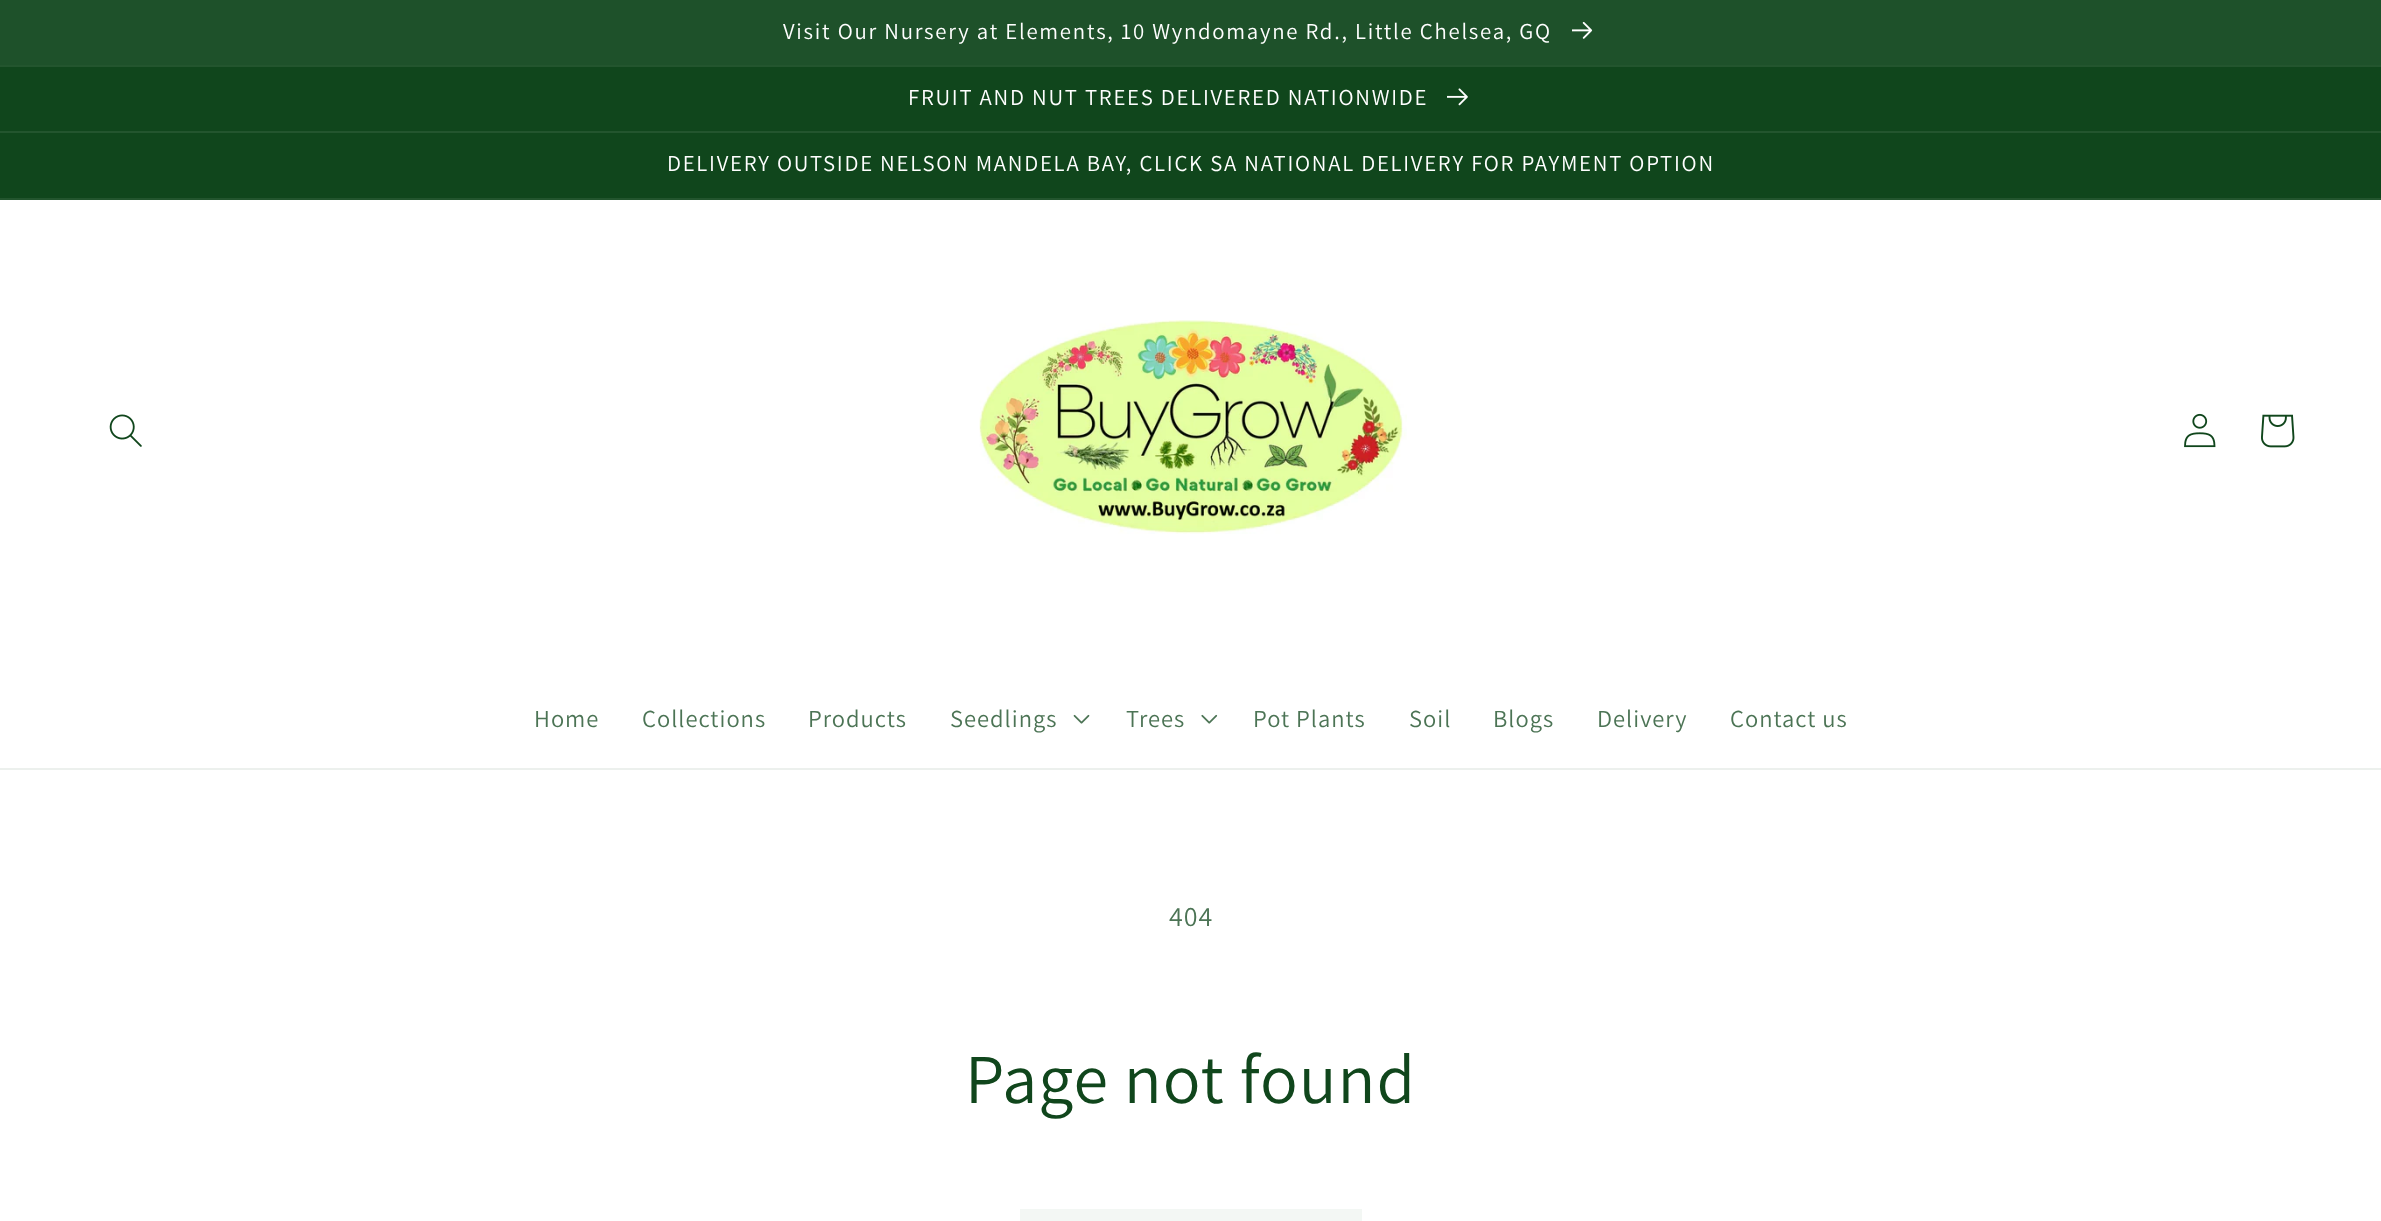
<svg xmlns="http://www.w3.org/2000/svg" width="2381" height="1221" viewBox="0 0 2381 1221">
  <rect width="100%" height="100%" fill="#fff"/>
  <path d="M0 65h2381v2H0z" fill="#23552e"/>
  <path d="M0 0h2381v65H0z" fill="#1e512a"/>
  <image x="1572" y="21" width="21" height="18" href="img/1.png"/>
  <path d="M0 67h2381v64H0z" fill="#10461c"/>
  <path d="M0 131h2381v2H0z" fill="#23552e"/>
  <image x="1447" y="88" width="21" height="18" href="img/2.png"/>
  <path d="M0 133h2381v65H0z" fill="#10461c"/>
  <path d="M0 198h2381v2H0z" fill="#23552e"/>
  <path d="M0 768h2381v2H0z" fill="#ecf0ed"/>
  <image x="109" y="414" width="33" height="33" href="img/3.png"/>
  <image x="979" y="320" width="428" height="214" href="img/4.png"/>
  <image x="2184" y="413" width="32" height="35" href="img/5.png"/>
  <image x="2261" y="414" width="34" height="34" href="img/6.png"/>
  <image x="1073" y="714" width="17" height="10" href="img/7.png"/>
  <image x="1201" y="714" width="17" height="10" href="img/8.png"/>
  <path d="M1020 1209h342v12H1020z" fill="#f3f7f4"/>
  <g font-family="Assistant" font-size="22.75" letter-spacing="1.75" fill="#fff">
    <text x="783" y="39">Visit Our Nursery at Elements, 10 Wyndomayne Rd., Little Chelsea, GQ</text>
    <text x="908" y="105">FRUIT AND NUT TREES DELIVERED NATIONWIDE</text>
    <text x="667" y="171">DELIVERY OUTSIDE NELSON MANDELA BAY, CLICK SA NATIONAL DELIVERY FOR PAYMENT OPTION</text>
  </g>
  <g font-family="Assistant" font-size="24.5" letter-spacing="1" fill="#4c7455">
    <text x="534" y="727">Home</text>
    <text x="642" y="727">Collections</text>
    <text x="808" y="727">Products</text>
    <text x="950" y="727">Seedlings</text>
    <text x="1126" y="727">Trees</text>
    <text x="1253" y="727">Pot Plants</text>
    <text x="1409" y="727">Soil</text>
    <text x="1493" y="727">Blogs</text>
    <text x="1597" y="727">Delivery</text>
    <text x="1730" y="727">Contact us</text>
  </g>
  <text x="1169" y="926" font-family="Assistant" font-size="28" letter-spacing="1" fill="#4c7455">404</text>
  <text x="965" y="1103" font-family="Assistant" font-size="70" letter-spacing="1" fill="#10461c">Page not found</text>
</svg>
